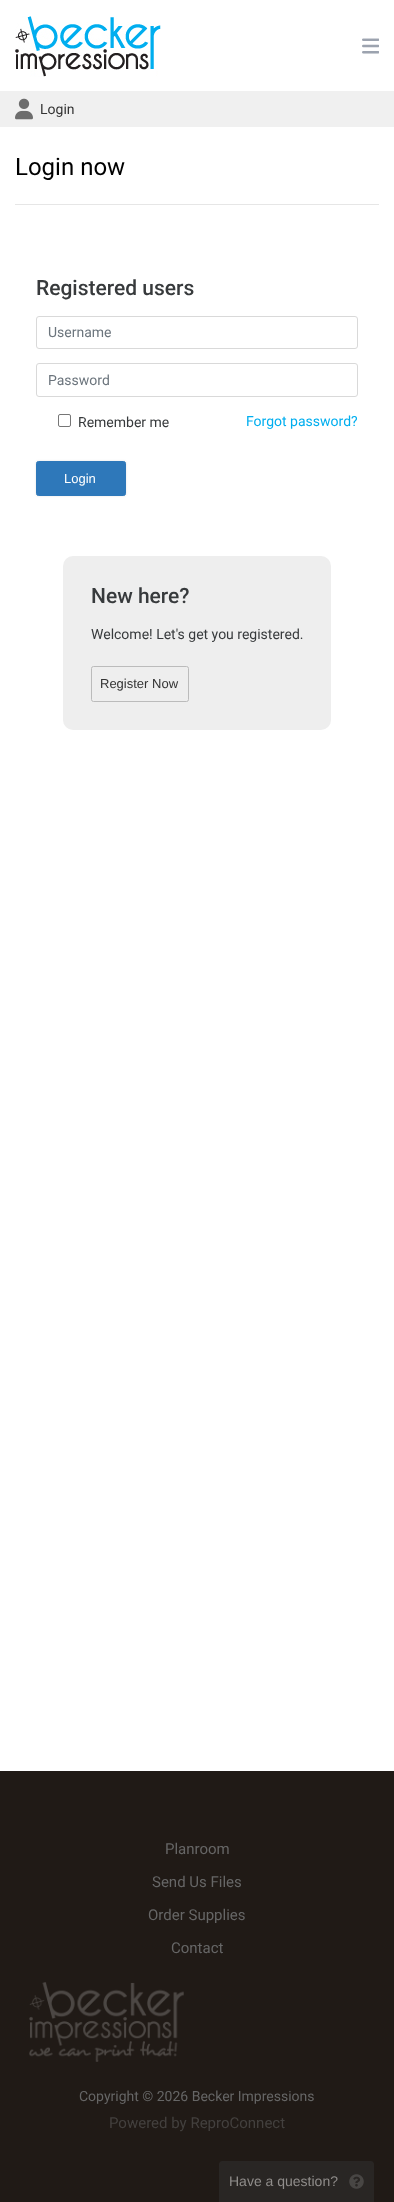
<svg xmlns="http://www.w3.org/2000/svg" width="394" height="2202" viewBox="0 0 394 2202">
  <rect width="100%" height="100%" fill="#fff"/>
  <image x="15" y="16" width="146" height="61" href="img/1.png"/>
  <image x="362" y="38" width="17" height="16" href="img/2.png"/>
  <path d="M0 91h394v36H0z" fill="#f0f0f0"/>
  <image x="15" y="98" width="18" height="22" href="img/3.png"/>
  <path d="M15 204h364v1H15z" fill="#e6e6e6"/>
  <rect x="36.5" y="316.5" width="321" height="32" rx="2.5" fill="none" stroke="#d9d9d9"/>
  <rect x="36.5" y="363.5" width="321" height="33" rx="2.5" fill="none" stroke="#d9d9d9"/>
  <rect x="58.5" y="414.5" width="12" height="12" rx="1.5" fill="none" stroke="#767676"/>
  <rect x="36" y="461" width="90" height="35" rx="2.5" fill="#0000001a" filter="blur(1px)"/>
  <rect x="36.5" y="461.5" width="89" height="34" rx="2" fill="#2e78ba" stroke="#2e78ba"/>
  <rect x="63" y="556" width="268" height="174" rx="10" fill="#eee"/>
  <rect x="91.5" y="666.5" width="97" height="35" rx="2" fill="none" stroke="#bbb"/>
  <path d="M0 1771h394v431H0z" fill="#201a16"/>
  <image x="29" y="1982" width="155" height="80" href="img/4.png"/>
  <path d="M222 2161H371C372.5 2161 374 2162.5 374 2164V2202H219V2164C219 2162.5 220.5 2161 222 2161Z" fill="#292624"/>
  <image x="349" y="2174" width="15" height="15" href="img/5.png"/>
  <text x="40" y="114" font-family="Roboto" font-size="14" fill="#333">Login</text>
  <text x="15" y="175" font-family="Roboto" font-size="24" fill="#000">Login now</text>
  <text x="36" y="295" font-family="Roboto" font-size="21" font-weight="500" fill="#373a3c">Registered users</text>
  <g font-family="Roboto" font-size="14" fill="#6c757d">
    <text x="48" y="337">Username</text>
    <text x="48" y="385">Password</text>
  </g>
  <text x="78" y="427" font-family="Roboto" font-size="14" fill="#373a3c">Remember me</text>
  <text x="246" y="426" font-family="Roboto" font-size="14" fill="#00aeef">Forgot password?</text>
  <text x="64" y="483" font-family="Liberation Sans" font-size="13" fill="#fff">Login</text>
  <text x="91" y="603" font-family="Roboto" font-size="21" font-weight="500" fill="#373a3c">New here?</text>
  <text x="91" y="639" font-family="Roboto" font-size="14" fill="#373a3c">Welcome! Let's get you registered.</text>
  <text x="100" y="688" font-family="Liberation Sans" font-size="13" fill="#333">Register Now</text>
  <g font-family="Roboto" font-size="15" fill="#666">
    <text x="165" y="1854">Planroom</text>
    <text x="152" y="1887">Send Us Files</text>
    <text x="148" y="1920">Order Supplies</text>
    <text x="171" y="1953">Contact</text>
  </g>
  <text x="79" y="2101" font-family="Roboto" font-size="14" fill="#666">Copyright © 2026 Becker Impressions</text>
  <text x="109" y="2128" font-family="Roboto" font-size="15" fill="#43403e">Powered by ReproConnect</text>
  <text x="229" y="2186" font-family="Liberation Sans" font-size="14" fill="#908d8b">Have a question?</text>
</svg>
